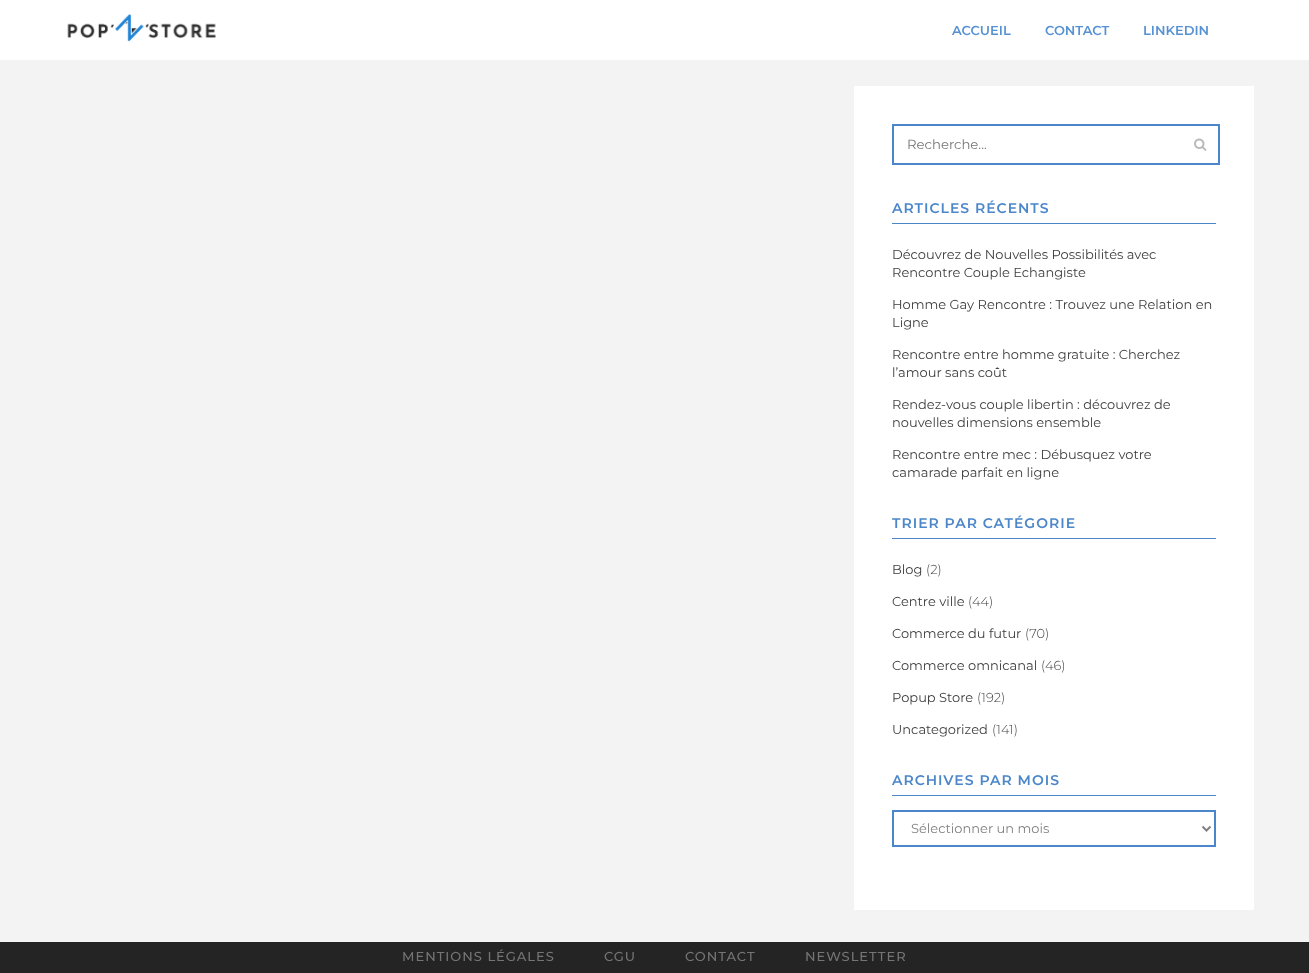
<svg xmlns="http://www.w3.org/2000/svg" width="1309" height="973" viewBox="0 0 1309 973">
  <rect width="100%" height="100%" fill="#f3f3f3"/>
  <path d="M0 0h1309v60H0z" fill="#fff"/>
  <image x="67" y="14" width="149" height="28" href="img/1.png"/>
  <path d="M854 86h400v824H854z" fill="#fff"/>
  <path d="M893 125h326v39H893z" fill="none" stroke="#4c86ca" stroke-width="2"/>
  <image x="1194" y="138" width="13" height="13" href="img/2.png"/>
  <path d="M892 223h324v1H892z" fill="#4c86ca"/>
  <path d="M892 538h324v1H892z" fill="#4c86ca"/>
  <path d="M892 795h324v1H892z" fill="#4c86ca"/>
  <path d="M893 811h322v35H893z" fill="none" stroke="#4c86ca" stroke-width="2"/>
  <path d="M1202.5 826.5L1206.5 830.5L1210.5 826.5" fill="none" stroke="#818181" stroke-width="2"/>
  <path d="M0 942h1309v31H0z" fill="#242424"/>
  <g font-family="Montserrat" font-size="13" font-weight="600" fill="#5691d3">
    <text x="952" y="35">ACCUEIL</text>
    <text x="1045" y="35">CONTACT</text>
    <text x="1143" y="35">LINKEDIN</text>
  </g>
  <text x="907" y="149" font-family="Montserrat" font-size="13.25" fill="#757575">Recherche...</text>
  <text x="892" y="213" font-family="Montserrat" font-size="14" font-weight="600" letter-spacing="1" fill="#4c87ca">ARTICLES RÉCENTS</text>
  <g font-family="Montserrat" font-size="13" fill="#3e3e3e">
    <text x="892" y="259">Découvrez de Nouvelles Possibilités avec</text>
    <text x="892" y="277">Rencontre Couple Echangiste</text>
    <text x="892" y="309">Homme Gay Rencontre : Trouvez une Relation en</text>
    <text x="892" y="327">Ligne</text>
    <text x="892" y="359">Rencontre entre homme gratuite : Cherchez</text>
    <text x="892" y="377">l’amour sans coût</text>
    <text x="892" y="409">Rendez-vous couple libertin : découvrez de</text>
    <text x="892" y="427">nouvelles dimensions ensemble</text>
    <text x="892" y="459">Rencontre entre mec : Débusquez votre</text>
    <text x="892" y="477">camarade parfait en ligne</text>
  </g>
  <text x="892" y="528" font-family="Montserrat" font-size="14" font-weight="600" letter-spacing="1" fill="#4c87ca">TRIER PAR CATÉGORIE</text>
  <text x="892" y="574" font-family="Montserrat" font-size="13" fill="#3e3e3e">Blog</text>
  <text x="926" y="574" font-family="Montserrat" font-size="13" font-weight="300" fill="#3e3e3e">(2)</text>
  <text x="892" y="606" font-family="Montserrat" font-size="13" fill="#3e3e3e">Centre ville</text>
  <text x="968" y="606" font-family="Montserrat" font-size="13" font-weight="300" fill="#3e3e3e">(44)</text>
  <text x="892" y="638" font-family="Montserrat" font-size="13" fill="#3e3e3e">Commerce du futur</text>
  <text x="1025" y="638" font-family="Montserrat" font-size="13" font-weight="300" fill="#3e3e3e">(70)</text>
  <text x="892" y="670" font-family="Montserrat" font-size="13" fill="#3e3e3e">Commerce omnicanal</text>
  <text x="1041" y="670" font-family="Montserrat" font-size="13" font-weight="300" fill="#3e3e3e">(46)</text>
  <text x="892" y="702" font-family="Montserrat" font-size="13" fill="#3e3e3e">Popup Store</text>
  <text x="977" y="702" font-family="Montserrat" font-size="13" font-weight="300" fill="#3e3e3e">(192)</text>
  <text x="892" y="734" font-family="Montserrat" font-size="13" fill="#3e3e3e">Uncategorized</text>
  <text x="992" y="734" font-family="Montserrat" font-size="13" font-weight="300" fill="#3e3e3e">(141)</text>
  <text x="892" y="785" font-family="Montserrat" font-size="14" font-weight="600" letter-spacing="1" fill="#4c87ca">ARCHIVES PAR MOIS</text>
  <text x="911" y="833" font-family="Montserrat" font-size="13" fill="#818181">Sélectionner un mois</text>
  <g font-family="Montserrat" font-size="13" font-weight="500" letter-spacing="1" fill="#757575">
    <text x="402" y="961">MENTIONS LÉGALES</text>
    <text x="604" y="961">CGU</text>
    <text x="685" y="961">CONTACT</text>
    <text x="805" y="961">NEWSLETTER</text>
  </g>
</svg>
